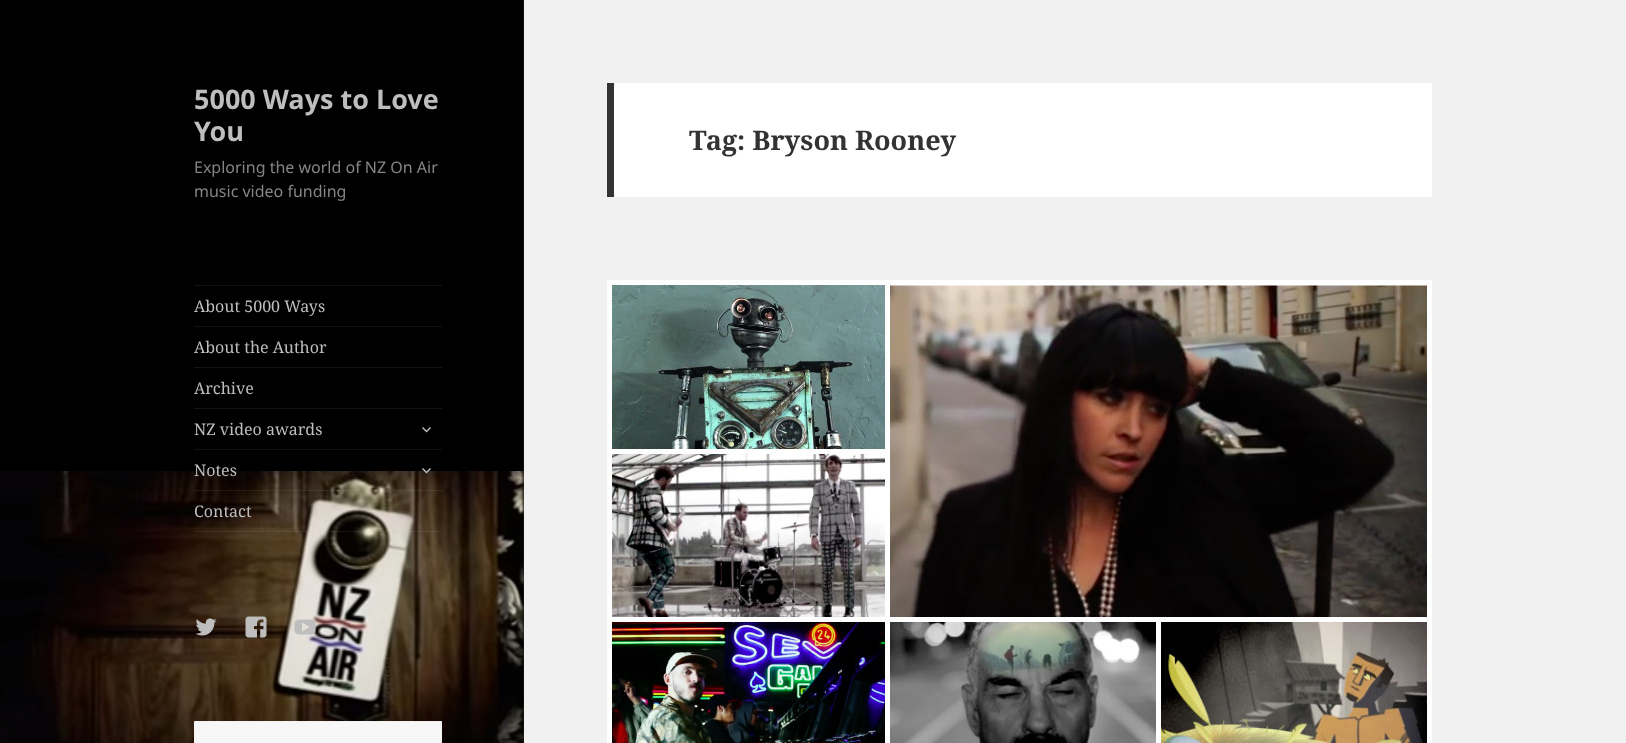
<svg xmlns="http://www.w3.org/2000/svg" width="1626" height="743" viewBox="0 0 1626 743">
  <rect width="100%" height="100%" fill="#f1f1f1"/>
  <image x="0" y="0" width="524" height="743" href="img/1.png"/>
  <path d="M194 285h248v1H194z" fill="#131313"/>
  <path d="M194 531h248v1H194z" fill="#bebebe1a"/>
  <path d="M194 326h248v1H194z" fill="#131313"/>
  <path d="M194 367h248v1H194z" fill="#131313"/>
  <path d="M194 408h248v1H194z" fill="#131313"/>
  <image x="422" y="427" width="9" height="6" href="img/2.png"/>
  <path d="M194 449h248v1H194z" fill="#131313"/>
  <image x="422" y="468" width="9" height="6" href="img/3.png"/>
  <path d="M194 490h248v1H194z" fill="#bebebe1a"/>
  <image x="195" y="618" width="22" height="18" href="img/4.png"/>
  <image x="245" y="616" width="22" height="22" href="img/5.png"/>
  <image x="294" y="619" width="22" height="16" href="img/6.png"/>
  <path d="M194.5 721.5h247v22H194.5z" fill="#f7f7f7" stroke="#f1f1f1"/>
  <path d="M614 83h818v114H614z" fill="#fff"/>
  <path d="M607 83h7v114H607z" fill="#333"/>
  <path d="M1431 280h1v463H1431z" fill="#fff"/>
  <image x="607" y="280" width="824" height="463" href="img/7.png"/>
  <g font-family="Noto Sans" font-size="27" font-weight="bold" fill="#bebebe">
    <text x="194" y="109">5000 Ways to Love</text>
    <text x="194" y="141">You</text>
  </g>
  <g font-family="Noto Sans" font-size="16" fill="#858585">
    <text x="194" y="173">Exploring the world of NZ On Air</text>
    <text x="194" y="197">music video funding</text>
  </g>
  <g font-family="Noto Serif" font-size="16" fill="#bebebe">
    <text x="194" y="312">About 5000 Ways</text>
    <text x="194" y="353">About the Author</text>
    <text x="194" y="394">Archive</text>
    <text x="194" y="435">NZ video awards</text>
    <text x="194" y="476">Notes</text>
    <text x="194" y="517">Contact</text>
  </g>
  <text x="689" y="150" font-family="Noto Serif" font-size="27" font-weight="bold" fill="#333">Tag: Bryson Rooney</text>
</svg>
